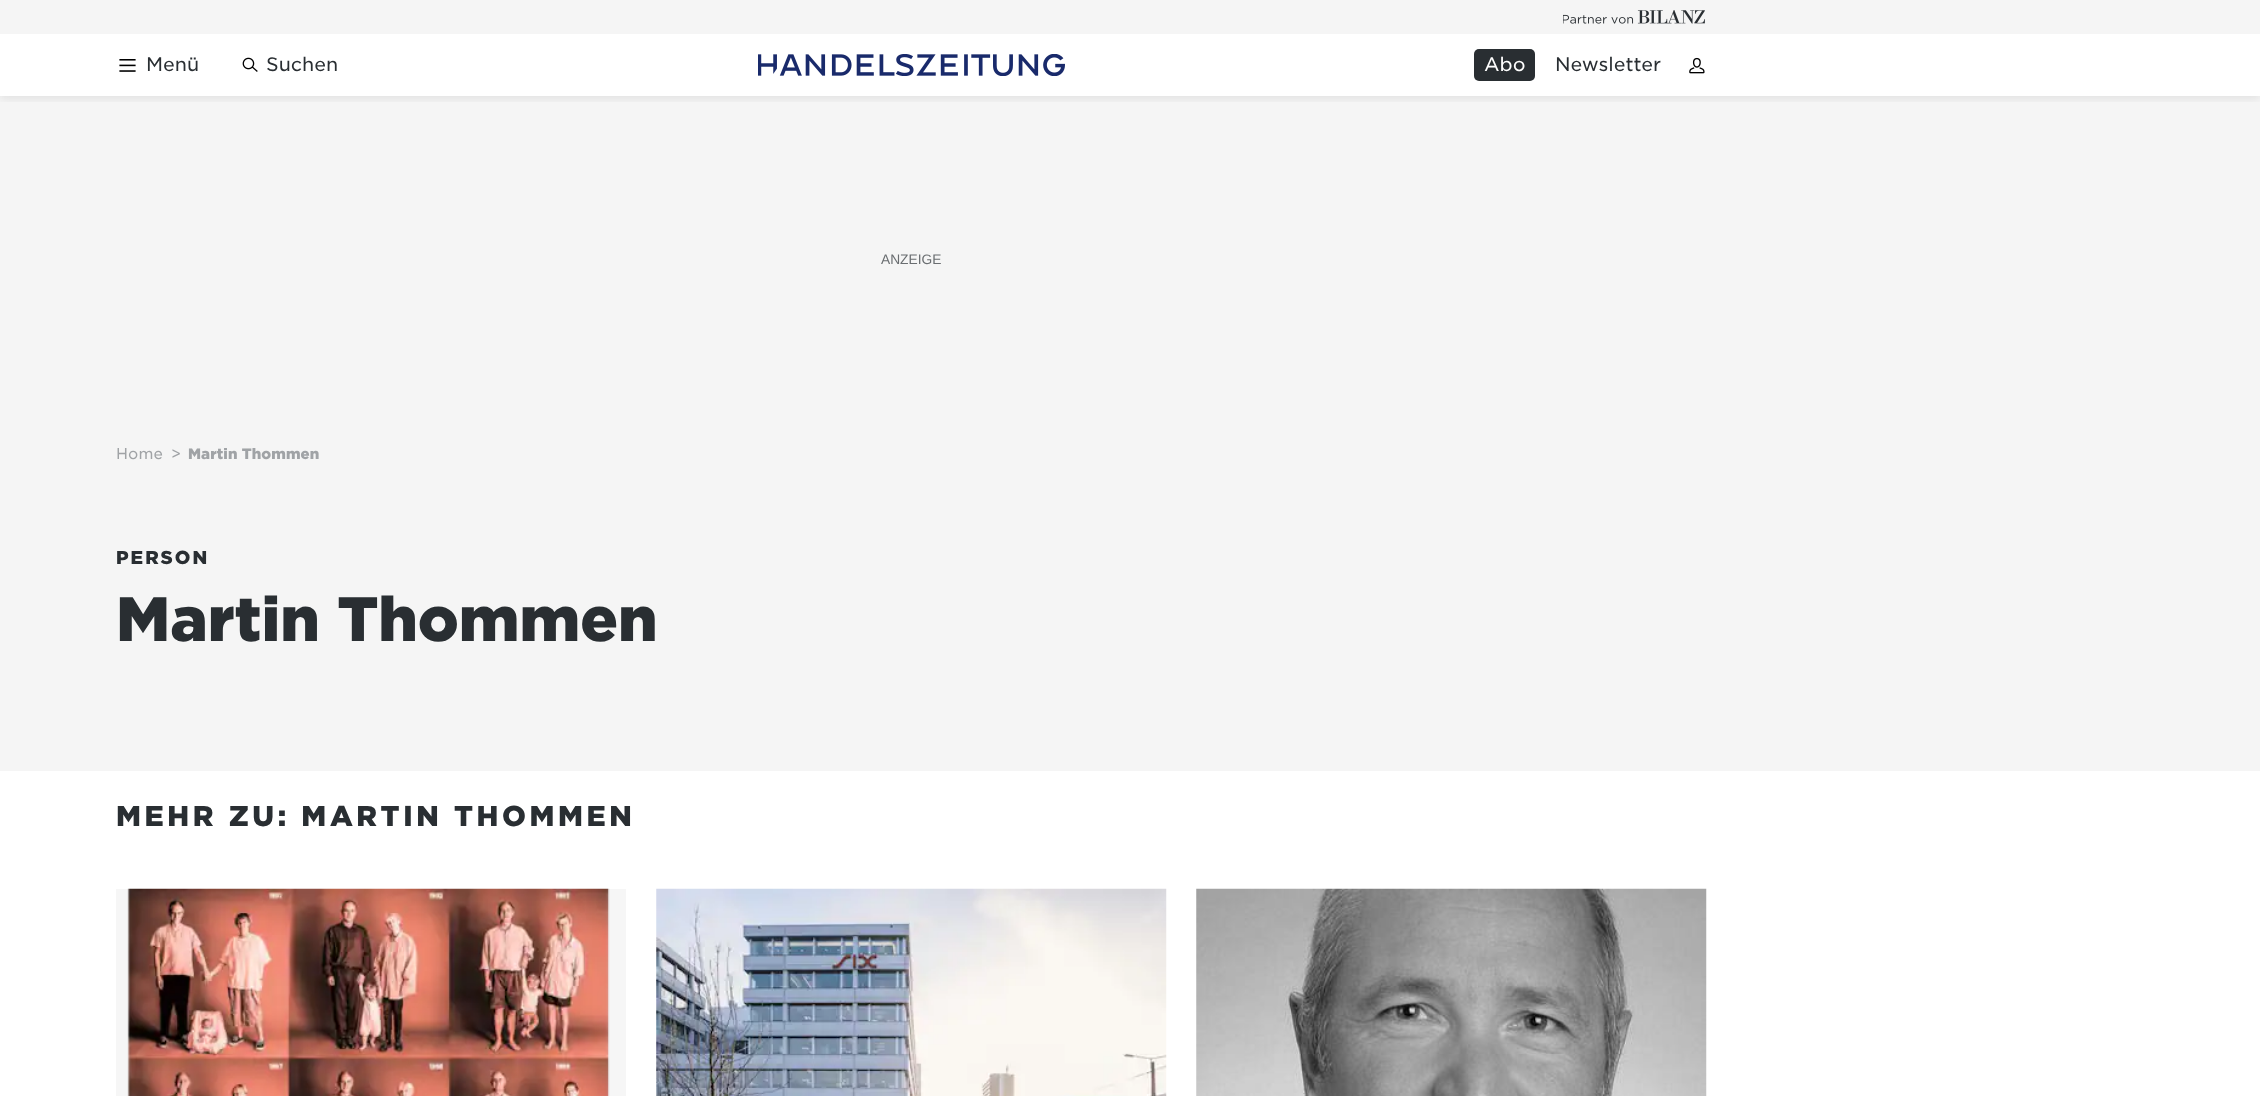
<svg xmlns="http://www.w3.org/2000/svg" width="2260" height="1096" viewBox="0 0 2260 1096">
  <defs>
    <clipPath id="clip1"><path d="M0 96h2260v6H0z"/></clipPath>
  </defs>
  <rect width="100%" height="100%" fill="#fff"/>
  <path d="M0 0h2260v34H0z" fill="#f5f5f5"/>
  <path d="M0 96h2260v675H0z" fill="#f5f5f5"/>
  <g clip-path="url(#clip1)">
    <path d="M0 36h2260v63H0z" fill="#00000014" filter="blur(5px)"/>
  </g>
  <image x="1563" y="10" width="142" height="14" href="img/1.png"/>
  <image x="119" y="59" width="17" height="13" href="img/2.png"/>
  <image x="242" y="57" width="16" height="15" href="img/3.png"/>
  <image x="758" y="54" width="307" height="22" href="img/4.png"/>
  <rect x="1474" y="49" width="61" height="32" rx="5" fill="#292e32"/>
  <image x="1689" y="57" width="16" height="17" href="img/5.png"/>
  <path d="M116 889h510v207H116z" fill="#f6f6f6"/>
  <image x="127" y="888" width="483" height="208" href="img/6.png"/>
  <image x="656" y="888" width="511" height="208" href="img/7.png"/>
  <image x="1196" y="888" width="511" height="208" href="img/8.png"/>
  <g font-family="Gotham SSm" font-size="18.75" fill="#292e32">
    <text x="146" y="71">Menü</text>
    <text x="266" y="71">Suchen</text>
  </g>
  <text x="1484" y="71" font-family="Gotham SSm" font-size="18.75" fill="#fff">Abo</text>
  <text x="1555" y="71" font-family="Gotham SSm" font-size="18.75" fill="#292e32">Newsletter</text>
  <text x="881" y="264" font-family="Liberation Sans" font-size="13.75" fill="#6a6e71">ANZEIGE</text>
  <g font-family="Gotham SSm" font-size="15" letter-spacing="0.1" fill="#a0a3a6">
    <text x="116" y="459">Home</text>
    <text x="171" y="459">&gt;</text>
  </g>
  <text x="188" y="459" font-family="Gotham" font-size="15" font-weight="900" letter-spacing="0.1" fill="#a0a3a6">Martin Thommen</text>
  <text x="116" y="564" font-family="Gotham" font-size="18.75" font-weight="900" letter-spacing="2" fill="#292e32">PERSON</text>
  <text x="116" y="641" font-family="Gotham" font-size="62.5" font-weight="900" fill="#292e32">Martin Thommen</text>
  <text x="116" y="826" font-family="Gotham" font-size="28.75" font-weight="900" letter-spacing="3.6" fill="#292e32">MEHR ZU: MARTIN THOMMEN</text>
</svg>
